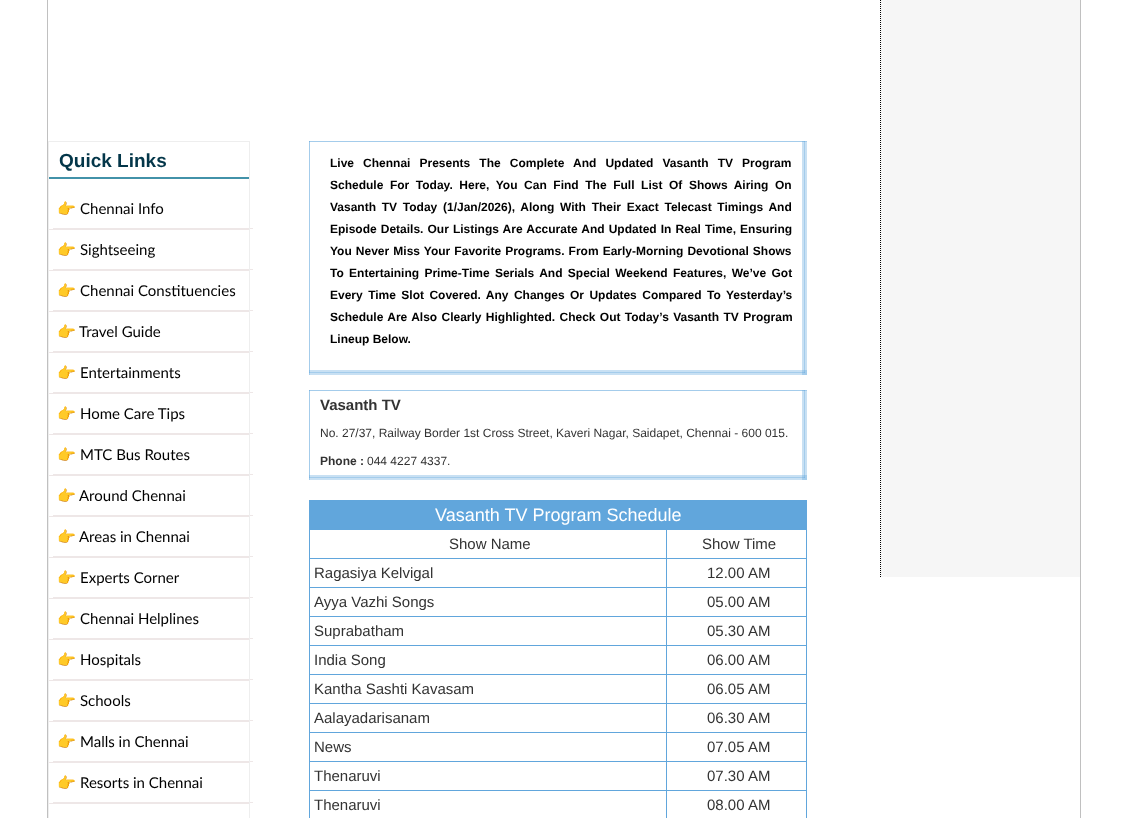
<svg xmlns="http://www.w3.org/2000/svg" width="1128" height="818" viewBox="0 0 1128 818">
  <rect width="100%" height="100%" fill="#fff"/>
  <path d="M309 475h498v5H309z" fill="#c8e0f3"/>
  <path d="M802 390h5v90H802z" fill="#c8e0f3"/>
  <path d="M802 475h5v5H802z" fill="#a4cceb"/>
  <path d="M309 477h496v1H309z" fill="#a4cceb"/>
  <path d="M802 477h3v1H802z" fill="#8dbfe6"/>
  <path d="M804 390h1v88H804z" fill="#a4cceb"/>
  <path d="M804 475h1v3H804z" fill="#8dbfe6"/>
  <path d="M804 477h1v1H804z" fill="#7eb6e3"/>
  <path d="M309 390h1v90H309z" fill="#a4cceb"/>
  <path d="M309 475h1v3H309z" fill="#8dbfe6"/>
  <path d="M309 477h1v1H309z" fill="#7eb6e3"/>
  <path d="M309 370h498v5H309z" fill="#c8e0f3"/>
  <path d="M802 141h5v234H802z" fill="#c8e0f3"/>
  <path d="M802 370h5v5H802z" fill="#a4cceb"/>
  <path d="M309 372h496v1H309z" fill="#a4cceb"/>
  <path d="M802 372h3v1H802z" fill="#8dbfe6"/>
  <path d="M804 141h1v232H804z" fill="#a4cceb"/>
  <path d="M804 370h1v3H804z" fill="#8dbfe6"/>
  <path d="M804 372h1v1H804z" fill="#7eb6e3"/>
  <path d="M309 141h1v234H309z" fill="#a4cceb"/>
  <path d="M309 370h1v3H309z" fill="#8dbfe6"/>
  <path d="M309 372h1v1H309z" fill="#7eb6e3"/>
  <path d="M1080 0h1v818H1080z" fill="#c0c0c0"/>
  <path d="M47 0h1v818H47z" fill="#c0c0c0"/>
  <path d="M48 141h202v1H48z" fill="#eee"/>
  <path d="M53 228h200v1H53z" fill="#eee7e7"/>
  <path d="M53 269h200v1H53z" fill="#eee7e7"/>
  <path d="M53 310h200v1H53z" fill="#eee7e7"/>
  <path d="M53 351h200v1H53z" fill="#eee7e7"/>
  <path d="M53 392h200v1H53z" fill="#eee7e7"/>
  <path d="M53 433h200v1H53z" fill="#eee7e7"/>
  <path d="M53 474h200v1H53z" fill="#eee7e7"/>
  <path d="M53 515h200v1H53z" fill="#eee7e7"/>
  <path d="M53 556h200v1H53z" fill="#eee7e7"/>
  <path d="M53 597h200v1H53z" fill="#eee7e7"/>
  <path d="M53 638h200v1H53z" fill="#eee7e7"/>
  <path d="M53 679h200v1H53z" fill="#eee7e7"/>
  <path d="M53 720h200v1H53z" fill="#eee7e7"/>
  <path d="M53 761h200v1H53z" fill="#eee7e7"/>
  <path d="M53 802h200v1H53z" fill="#eee7e7"/>
  <path d="M249 141h1v677H249z" fill="#eee"/>
  <path d="M48 141h1v677H48z" fill="#eee"/>
  <path d="M49 177h200v2H49z" fill="#4292a9"/>
  <path d="M49 229h200v1H49z" fill="#eee7e7"/>
  <path d="M49 270h200v1H49z" fill="#eee7e7"/>
  <path d="M49 311h200v1H49z" fill="#eee7e7"/>
  <path d="M49 352h200v1H49z" fill="#eee7e7"/>
  <path d="M49 393h200v1H49z" fill="#eee7e7"/>
  <path d="M49 434h200v1H49z" fill="#eee7e7"/>
  <path d="M49 475h200v1H49z" fill="#eee7e7"/>
  <path d="M49 516h200v1H49z" fill="#eee7e7"/>
  <path d="M49 557h200v1H49z" fill="#eee7e7"/>
  <path d="M49 598h200v1H49z" fill="#eee7e7"/>
  <path d="M49 639h200v1H49z" fill="#eee7e7"/>
  <path d="M49 680h200v1H49z" fill="#eee7e7"/>
  <path d="M49 721h200v1H49z" fill="#eee7e7"/>
  <path d="M49 762h200v1H49z" fill="#eee7e7"/>
  <path d="M49 803h200v1H49z" fill="#eee7e7"/>
  <path d="M309 141h498v1H309z" fill="#a4cceb"/>
  <path d="M802 141h3v1H802z" fill="#8dbfe6"/>
  <path d="M804 141h1v1H804z" fill="#7eb6e3"/>
  <path d="M309 141h1v1H309z" fill="#7eb6e3"/>
  <path d="M309 390h498v1H309z" fill="#a4cceb"/>
  <path d="M802 390h3v1H802z" fill="#8dbfe6"/>
  <path d="M804 390h1v1H804z" fill="#7eb6e3"/>
  <path d="M309 390h1v1H309z" fill="#7eb6e3"/>
  <path d="M309 500h498v1H309z" fill="#61a6dc"/>
  <path d="M806 500h1v318H806z" fill="#61a6dc"/>
  <path d="M309 500h1v318H309z" fill="#61a6dc"/>
  <path d="M310 501h496v28H310z" fill="#61a6dc"/>
  <path d="M666 529h141v1H666z" fill="#61a6dc"/>
  <path d="M666 558h141v1H666z" fill="#61a6dc"/>
  <path d="M666 587h141v1H666z" fill="#61a6dc"/>
  <path d="M666 616h141v1H666z" fill="#61a6dc"/>
  <path d="M666 645h141v1H666z" fill="#61a6dc"/>
  <path d="M666 674h141v1H666z" fill="#61a6dc"/>
  <path d="M666 703h141v1H666z" fill="#61a6dc"/>
  <path d="M666 732h141v1H666z" fill="#61a6dc"/>
  <path d="M666 761h141v1H666z" fill="#61a6dc"/>
  <path d="M666 790h141v1H666z" fill="#61a6dc"/>
  <path d="M666 790h1v28H666z" fill="#61a6dc"/>
  <path d="M309 790h358v1H309z" fill="#61a6dc"/>
  <path d="M666 761h1v30H666z" fill="#61a6dc"/>
  <path d="M309 761h358v1H309z" fill="#61a6dc"/>
  <path d="M666 732h1v30H666z" fill="#61a6dc"/>
  <path d="M309 732h358v1H309z" fill="#61a6dc"/>
  <path d="M666 703h1v30H666z" fill="#61a6dc"/>
  <path d="M309 703h358v1H309z" fill="#61a6dc"/>
  <path d="M666 674h1v30H666z" fill="#61a6dc"/>
  <path d="M309 674h358v1H309z" fill="#61a6dc"/>
  <path d="M666 645h1v30H666z" fill="#61a6dc"/>
  <path d="M309 645h358v1H309z" fill="#61a6dc"/>
  <path d="M666 616h1v30H666z" fill="#61a6dc"/>
  <path d="M309 616h358v1H309z" fill="#61a6dc"/>
  <path d="M666 587h1v30H666z" fill="#61a6dc"/>
  <path d="M309 587h358v1H309z" fill="#61a6dc"/>
  <path d="M666 558h1v30H666z" fill="#61a6dc"/>
  <path d="M309 558h358v1H309z" fill="#61a6dc"/>
  <path d="M666 529h1v30H666z" fill="#61a6dc"/>
  <path d="M309 529h358v1H309z" fill="#61a6dc"/>
  <image x="880" y="0" width="200" height="577" href="img/1.png"/>
  <text x="59" y="167" font-family="Liberation Sans" font-size="19" font-weight="bold" fill="#033649">Quick Links</text>
  <text x="57" y="214" font-family="Noto Color Emoji" font-size="15" font-weight="bold" fill="#c00">👉</text>
  <text x="80" y="214" font-family="Lato" font-size="15" fill="#000">Chennai Info</text>
  <text x="57" y="255" font-family="Noto Color Emoji" font-size="15" font-weight="bold" fill="#c00">👉</text>
  <text x="80" y="255" font-family="Lato" font-size="15" fill="#000">Sightseeing</text>
  <text x="57" y="296" font-family="Noto Color Emoji" font-size="15" font-weight="bold" fill="#c00">👉</text>
  <text x="80" y="296" font-family="Lato" font-size="15" fill="#000">Chennai Constituencies</text>
  <text x="57" y="337" font-family="Noto Color Emoji" font-size="15" font-weight="bold" fill="#c00">👉</text>
  <text x="79" y="337" font-family="Lato" font-size="15" fill="#000">Travel Guide</text>
  <text x="57" y="378" font-family="Noto Color Emoji" font-size="15" font-weight="bold" fill="#c00">👉</text>
  <text x="80" y="378" font-family="Lato" font-size="15" fill="#000">Entertainments</text>
  <text x="57" y="419" font-family="Noto Color Emoji" font-size="15" font-weight="bold" fill="#c00">👉</text>
  <text x="80" y="419" font-family="Lato" font-size="15" fill="#000">Home Care Tips</text>
  <text x="57" y="460" font-family="Noto Color Emoji" font-size="15" font-weight="bold" fill="#c00">👉</text>
  <text x="80" y="460" font-family="Lato" font-size="15" fill="#000">MTC Bus Routes</text>
  <text x="57" y="501" font-family="Noto Color Emoji" font-size="15" font-weight="bold" fill="#c00">👉</text>
  <text x="79" y="501" font-family="Lato" font-size="15" fill="#000">Around Chennai</text>
  <text x="57" y="542" font-family="Noto Color Emoji" font-size="15" font-weight="bold" fill="#c00">👉</text>
  <text x="79" y="542" font-family="Lato" font-size="15" fill="#000">Areas in Chennai</text>
  <text x="57" y="583" font-family="Noto Color Emoji" font-size="15" font-weight="bold" fill="#c00">👉</text>
  <text x="80" y="583" font-family="Lato" font-size="15" fill="#000">Experts Corner</text>
  <text x="57" y="624" font-family="Noto Color Emoji" font-size="15" font-weight="bold" fill="#c00">👉</text>
  <text x="80" y="624" font-family="Lato" font-size="15" fill="#000">Chennai Helplines</text>
  <text x="57" y="665" font-family="Noto Color Emoji" font-size="15" font-weight="bold" fill="#c00">👉</text>
  <text x="80" y="665" font-family="Lato" font-size="15" fill="#000">Hospitals</text>
  <text x="57" y="706" font-family="Noto Color Emoji" font-size="15" font-weight="bold" fill="#c00">👉</text>
  <text x="80" y="706" font-family="Lato" font-size="15" fill="#000">Schools</text>
  <text x="57" y="747" font-family="Noto Color Emoji" font-size="15" font-weight="bold" fill="#c00">👉</text>
  <text x="80" y="747" font-family="Lato" font-size="15" fill="#000">Malls in Chennai</text>
  <text x="57" y="788" font-family="Noto Color Emoji" font-size="15" font-weight="bold" fill="#c00">👉</text>
  <text x="80" y="788" font-family="Lato" font-size="15" fill="#000">Resorts in Chennai</text>
  <g font-family="Liberation Sans" font-size="12" font-weight="bold" fill="#000">
    <text x="330" y="167" word-spacing="5.75">Live Chennai Presents The Complete And Updated Vasanth TV Program</text>
    <text x="330" y="189" word-spacing="3.25">Schedule For Today. Here, You Can Find The Full List Of Shows Airing On</text>
    <text x="330" y="211" word-spacing="2.4">Vasanth TV Today (1/Jan/2026), Along With Their Exact Telecast Timings And</text>
    <text x="330" y="233" word-spacing="0.75">Episode Details. Our Listings Are Accurate And Updated In Real Time, Ensuring</text>
    <text x="330" y="255" word-spacing="0.75">You Never Miss Your Favorite Programs. From Early-Morning Devotional Shows</text>
    <text x="330" y="277" word-spacing="2">To Entertaining Prime-Time Serials And Special Weekend Features, We’ve Got</text>
    <text x="330" y="299" word-spacing="2.1">Every Time Slot Covered. Any Changes Or Updates Compared To Yesterday’s</text>
    <text x="330" y="321" word-spacing="1">Schedule Are Also Clearly Highlighted. Check Out Today’s Vasanth TV Program</text>
    <text x="330" y="343">Lineup Below.</text>
  </g>
  <text x="320" y="410" font-family="Liberation Sans" font-size="15" font-weight="bold" fill="#333">Vasanth TV</text>
  <text x="320" y="437" font-family="Liberation Sans" font-size="12" fill="#333">No. 27/37, Railway Border 1st Cross Street, Kaveri Nagar, Saidapet, Chennai - 600 015.</text>
  <text x="320" y="465" font-family="Liberation Sans" font-size="12" font-weight="bold" fill="#333">Phone :</text>
  <text x="367" y="465" font-family="Liberation Sans" font-size="12" fill="#333">044 4227 4337.</text>
  <text x="435" y="521" font-family="Liberation Sans" font-size="18" fill="#fff">Vasanth TV Program Schedule</text>
  <g font-family="Liberation Sans" font-size="15" fill="#333">
    <text x="449" y="549">Show Name</text>
    <text x="702" y="549">Show Time</text>
    <text x="314" y="578">Ragasiya Kelvigal</text>
    <text x="707" y="578">12.00 AM</text>
    <text x="314" y="607">Ayya Vazhi Songs</text>
    <text x="707" y="607">05.00 AM</text>
    <text x="314" y="636">Suprabatham</text>
    <text x="707" y="636">05.30 AM</text>
    <text x="314" y="665">India Song</text>
    <text x="707" y="665">06.00 AM</text>
    <text x="314" y="694">Kantha Sashti Kavasam</text>
    <text x="707" y="694">06.05 AM</text>
    <text x="314" y="723">Aalayadarisanam</text>
    <text x="707" y="723">06.30 AM</text>
    <text x="314" y="752">News</text>
    <text x="707" y="752">07.05 AM</text>
    <text x="314" y="781">Thenaruvi</text>
    <text x="707" y="781">07.30 AM</text>
    <text x="314" y="810">Thenaruvi</text>
    <text x="707" y="810">08.00 AM</text>
  </g>
</svg>
